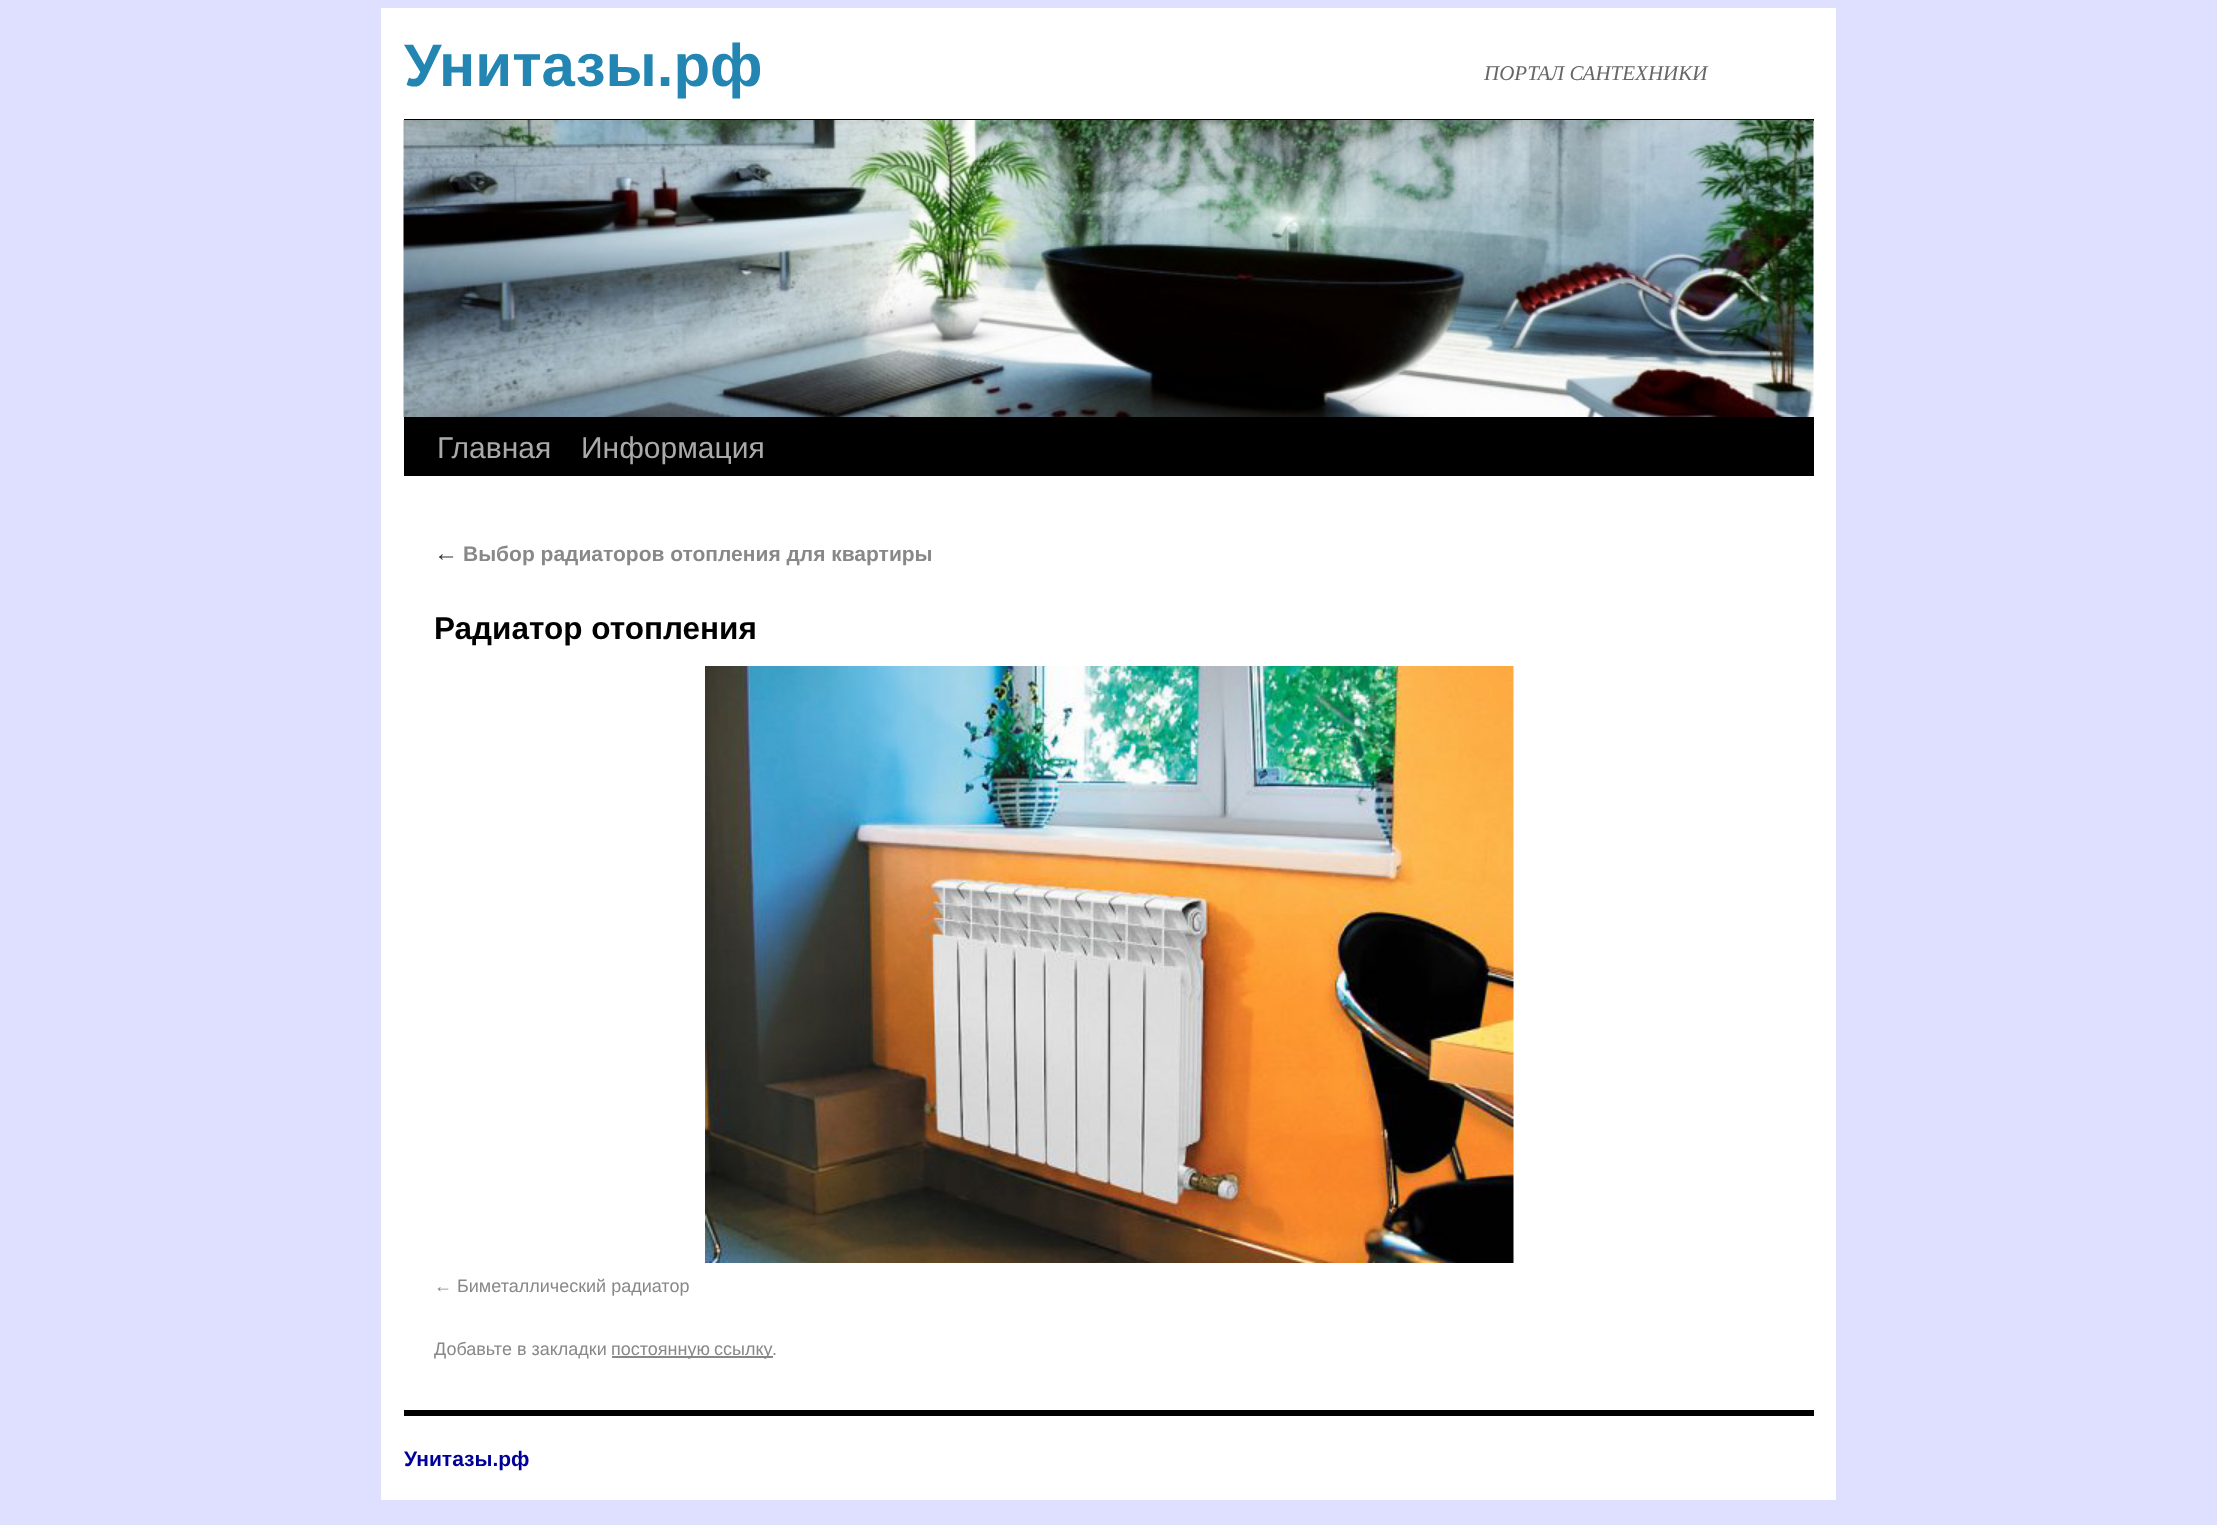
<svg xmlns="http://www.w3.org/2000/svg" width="2217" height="1525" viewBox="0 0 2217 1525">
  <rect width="100%" height="100%" fill="#dfdfff"/>
  <path d="M381 8h1455v1492H381z" fill="#fff"/>
  <path d="M404 119h1410v2H404z" fill="#000"/>
  <path d="M404 417h1410v59H404z" fill="#000"/>
  <image x="403" y="120" width="1411" height="297" href="img/1.png"/>
  <image x="705" y="666" width="809" height="597" href="img/2.png"/>
  <path d="M612 1356h161v2H612z" fill="#888"/>
  <path d="M404 1410h1410v6H404z" fill="#000"/>
  <text x="404" y="86" font-family="Liberation Sans" font-size="60" font-weight="bold" fill="#2285b2">Унитазы.рф</text>
  <text x="1484" y="80" font-family="Liberation Serif" font-size="21" font-style="italic" fill="#666">ПОРТАЛ САНТЕХНИКИ</text>
  <g font-family="Liberation Sans" font-size="30" fill="#aaa">
    <text x="437" y="458">Главная</text>
    <text x="581" y="458">Информация</text>
  </g>
  <text x="434" y="561" font-family="Liberation Serif" font-size="24" font-style="italic" fill="#333">←</text>
  <text x="463" y="561" font-family="Liberation Sans" font-size="21" font-weight="bold" fill="#888">Выбор радиаторов отопления для квартиры</text>
  <text x="434" y="639" font-family="Liberation Sans" font-size="31.5" font-weight="bold" fill="#000">Радиатор отопления</text>
  <g font-family="Liberation Sans" font-size="18" fill="#888">
    <text x="434" y="1292">← Биметаллический радиатор</text>
    <text x="434" y="1355">Добавьте в закладки</text>
    <text x="611" y="1355" word-spacing="-1">постоянную ссылку</text>
    <text x="772" y="1355">.</text>
  </g>
  <text x="404" y="1466" font-family="Liberation Sans" font-size="21" font-weight="bold" fill="#009">Унитазы.рф</text>
</svg>
